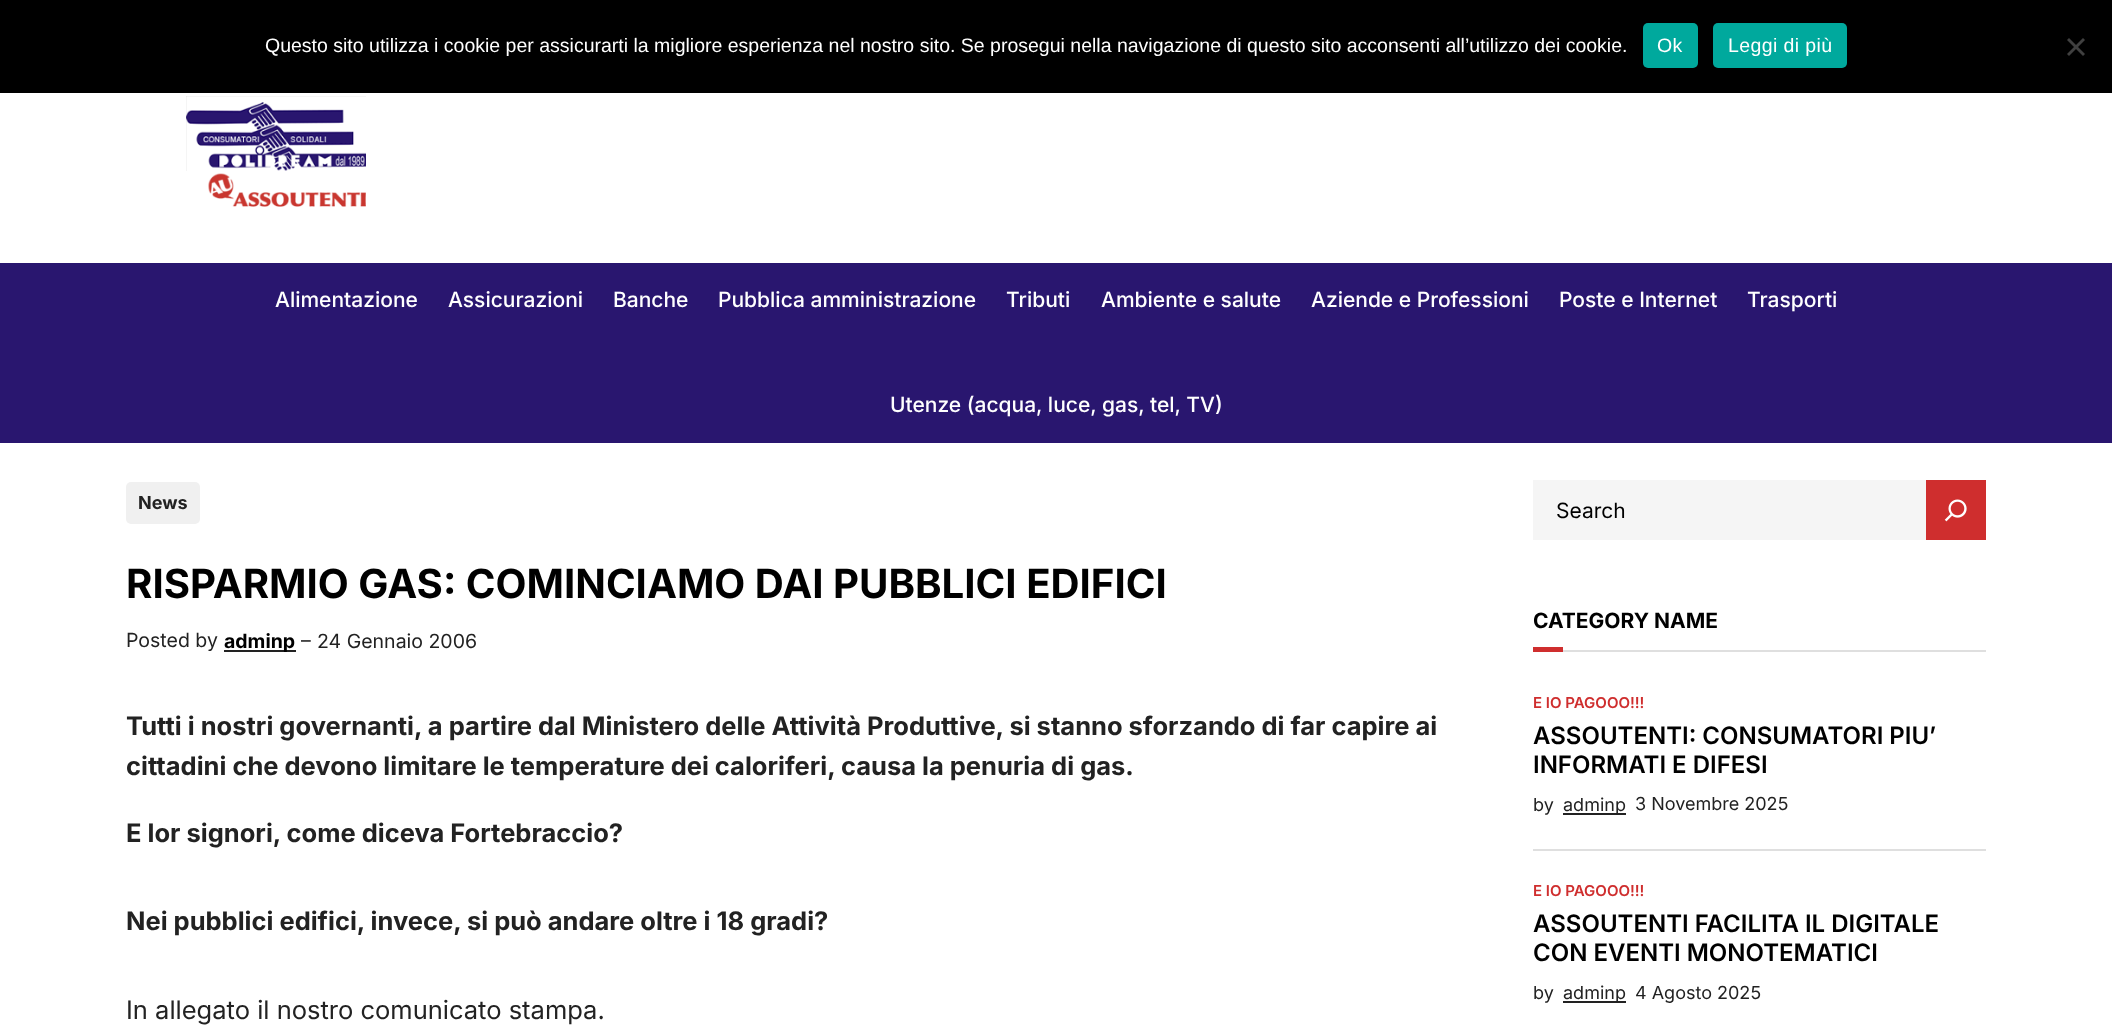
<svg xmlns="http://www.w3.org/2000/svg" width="2112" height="1036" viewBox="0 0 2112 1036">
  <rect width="100%" height="100%" fill="#fff"/>
  <path d="M0 0h2112v93H0z" fill="#000"/>
  <rect x="1643" y="23" width="55" height="45" rx="5" fill="#00a99d"/>
  <rect x="1713" y="23" width="134" height="45" rx="5" fill="#00a99d"/>
  <path d="M2083 38L2085 40L2069 56L2067 54Z" fill="#404040"/>
  <path d="M2067 40L2069 38L2085 54L2083 56Z" fill="#404040"/>
  <image x="186" y="96" width="180" height="111" href="img/1.png"/>
  <path d="M0 263h2112v180H0z" fill="#29166f"/>
  <rect x="126" y="482" width="74" height="42" rx="5" fill="#f0f0f0"/>
  <path d="M224 650h72v2H224z" fill="#222"/>
  <path d="M1533 480h393v60H1533z" fill="#f5f5f5"/>
  <path d="M1926 480h60v60H1926z" fill="#cf2e2e"/>
  <image x="1944" y="499" width="23" height="23" href="img/2.png"/>
  <path d="M1563 650h423v2H1563z" fill="#dfdfdf"/>
  <path d="M1533 647h30v5H1533z" fill="#cf2e2e"/>
  <path d="M1533 849h453v2H1533z" fill="#dfdfdf"/>
  <path d="M1563 813h63v2H1563z" fill="#222"/>
  <path d="M1563 1001h63v2H1563z" fill="#222"/>
  <text x="265" y="52" font-family="Liberation Sans" font-size="19.5" fill="#fff">Questo sito utilizza i cookie per assicurarti la migliore esperienza nel nostro sito. Se prosegui nella navigazione di questo sito acconsenti all’utilizzo dei cookie.</text>
  <g font-family="Liberation Sans" font-size="19.5" letter-spacing="0.4" fill="#fff">
    <text x="1657" y="52">Ok</text>
    <text x="1728" y="52">Leggi di più</text>
  </g>
  <g font-family="Inter" font-size="21" font-weight="500" fill="#fff">
    <text x="275" y="307">Alimentazione</text>
    <text x="448" y="307">Assicurazioni</text>
    <text x="613" y="307">Banche</text>
    <text x="718" y="307">Pubblica amministrazione</text>
    <text x="1006" y="307">Tributi</text>
    <text x="1101" y="307">Ambiente e salute</text>
    <text x="1311" y="307">Aziende e Professioni</text>
    <text x="1559" y="307">Poste e Internet</text>
    <text x="1747" y="307">Trasporti</text>
    <text x="890" y="412">Utenze (acqua, luce, gas, tel, TV)</text>
  </g>
  <text x="138" y="509" font-family="Inter" font-size="18" font-weight="bold" fill="#222">News</text>
  <text x="126" y="598" font-family="Inter" font-size="40.2" font-weight="bold" fill="#000">RISPARMIO GAS: COMINCIAMO DAI PUBBLICI EDIFICI</text>
  <text x="126" y="647" font-family="Inter" font-size="19.5" fill="#222">Posted by</text>
  <text x="224" y="648" font-family="Inter" font-size="19.5" font-weight="bold" fill="#000">adminp</text>
  <g font-family="Inter" font-size="19.5" fill="#222">
    <text x="301" y="647">–</text>
    <text x="317" y="648">24 Gennaio 2006</text>
  </g>
  <g font-family="Inter" font-size="25.5" font-weight="bold" fill="#222">
    <text x="126" y="735">Tutti i nostri governanti, a partire dal Ministero delle Attività Produttive, si stanno sforzando di far capire ai</text>
    <text x="126" y="775">cittadini che devono limitare le temperature dei caloriferi, causa la penuria di gas.</text>
    <text x="126" y="842">E lor signori, come diceva Fortebraccio?</text>
    <text x="126" y="930">Nei pubblici edifici, invece, si può andare oltre i 18 gradi?</text>
  </g>
  <text x="126" y="1019" font-family="Inter" font-size="25.5" fill="#222">In allegato il nostro comunicato stampa.</text>
  <text x="1556" y="518" font-family="Inter" font-size="21" fill="#000">Search</text>
  <text x="1533" y="628" font-family="Inter" font-size="21" font-weight="bold" fill="#000">CATEGORY NAME</text>
  <text x="1533" y="708" font-family="Inter" font-size="15" font-weight="600" fill="#cf2e2e">E IO PAGOOO!!!</text>
  <g font-family="Inter" font-size="24" font-weight="600" fill="#000">
    <text x="1533" y="744">ASSOUTENTI: CONSUMATORI PIU’</text>
    <text x="1533" y="773">INFORMATI E DIFESI</text>
  </g>
  <g font-family="Inter" font-size="18" fill="#222">
    <text x="1533" y="811">by</text>
    <text x="1563" y="811">adminp</text>
    <text x="1635" y="810">3 Novembre 2025</text>
  </g>
  <text x="1533" y="896" font-family="Inter" font-size="15" font-weight="600" fill="#cf2e2e">E IO PAGOOO!!!</text>
  <g font-family="Inter" font-size="24" font-weight="600" fill="#000">
    <text x="1533" y="932">ASSOUTENTI FACILITA IL DIGITALE</text>
    <text x="1533" y="961">CON EVENTI MONOTEMATICI</text>
  </g>
  <g font-family="Inter" font-size="18" fill="#222">
    <text x="1533" y="999">by</text>
    <text x="1563" y="999">adminp</text>
    <text x="1635" y="999">4 Agosto 2025</text>
  </g>
</svg>
